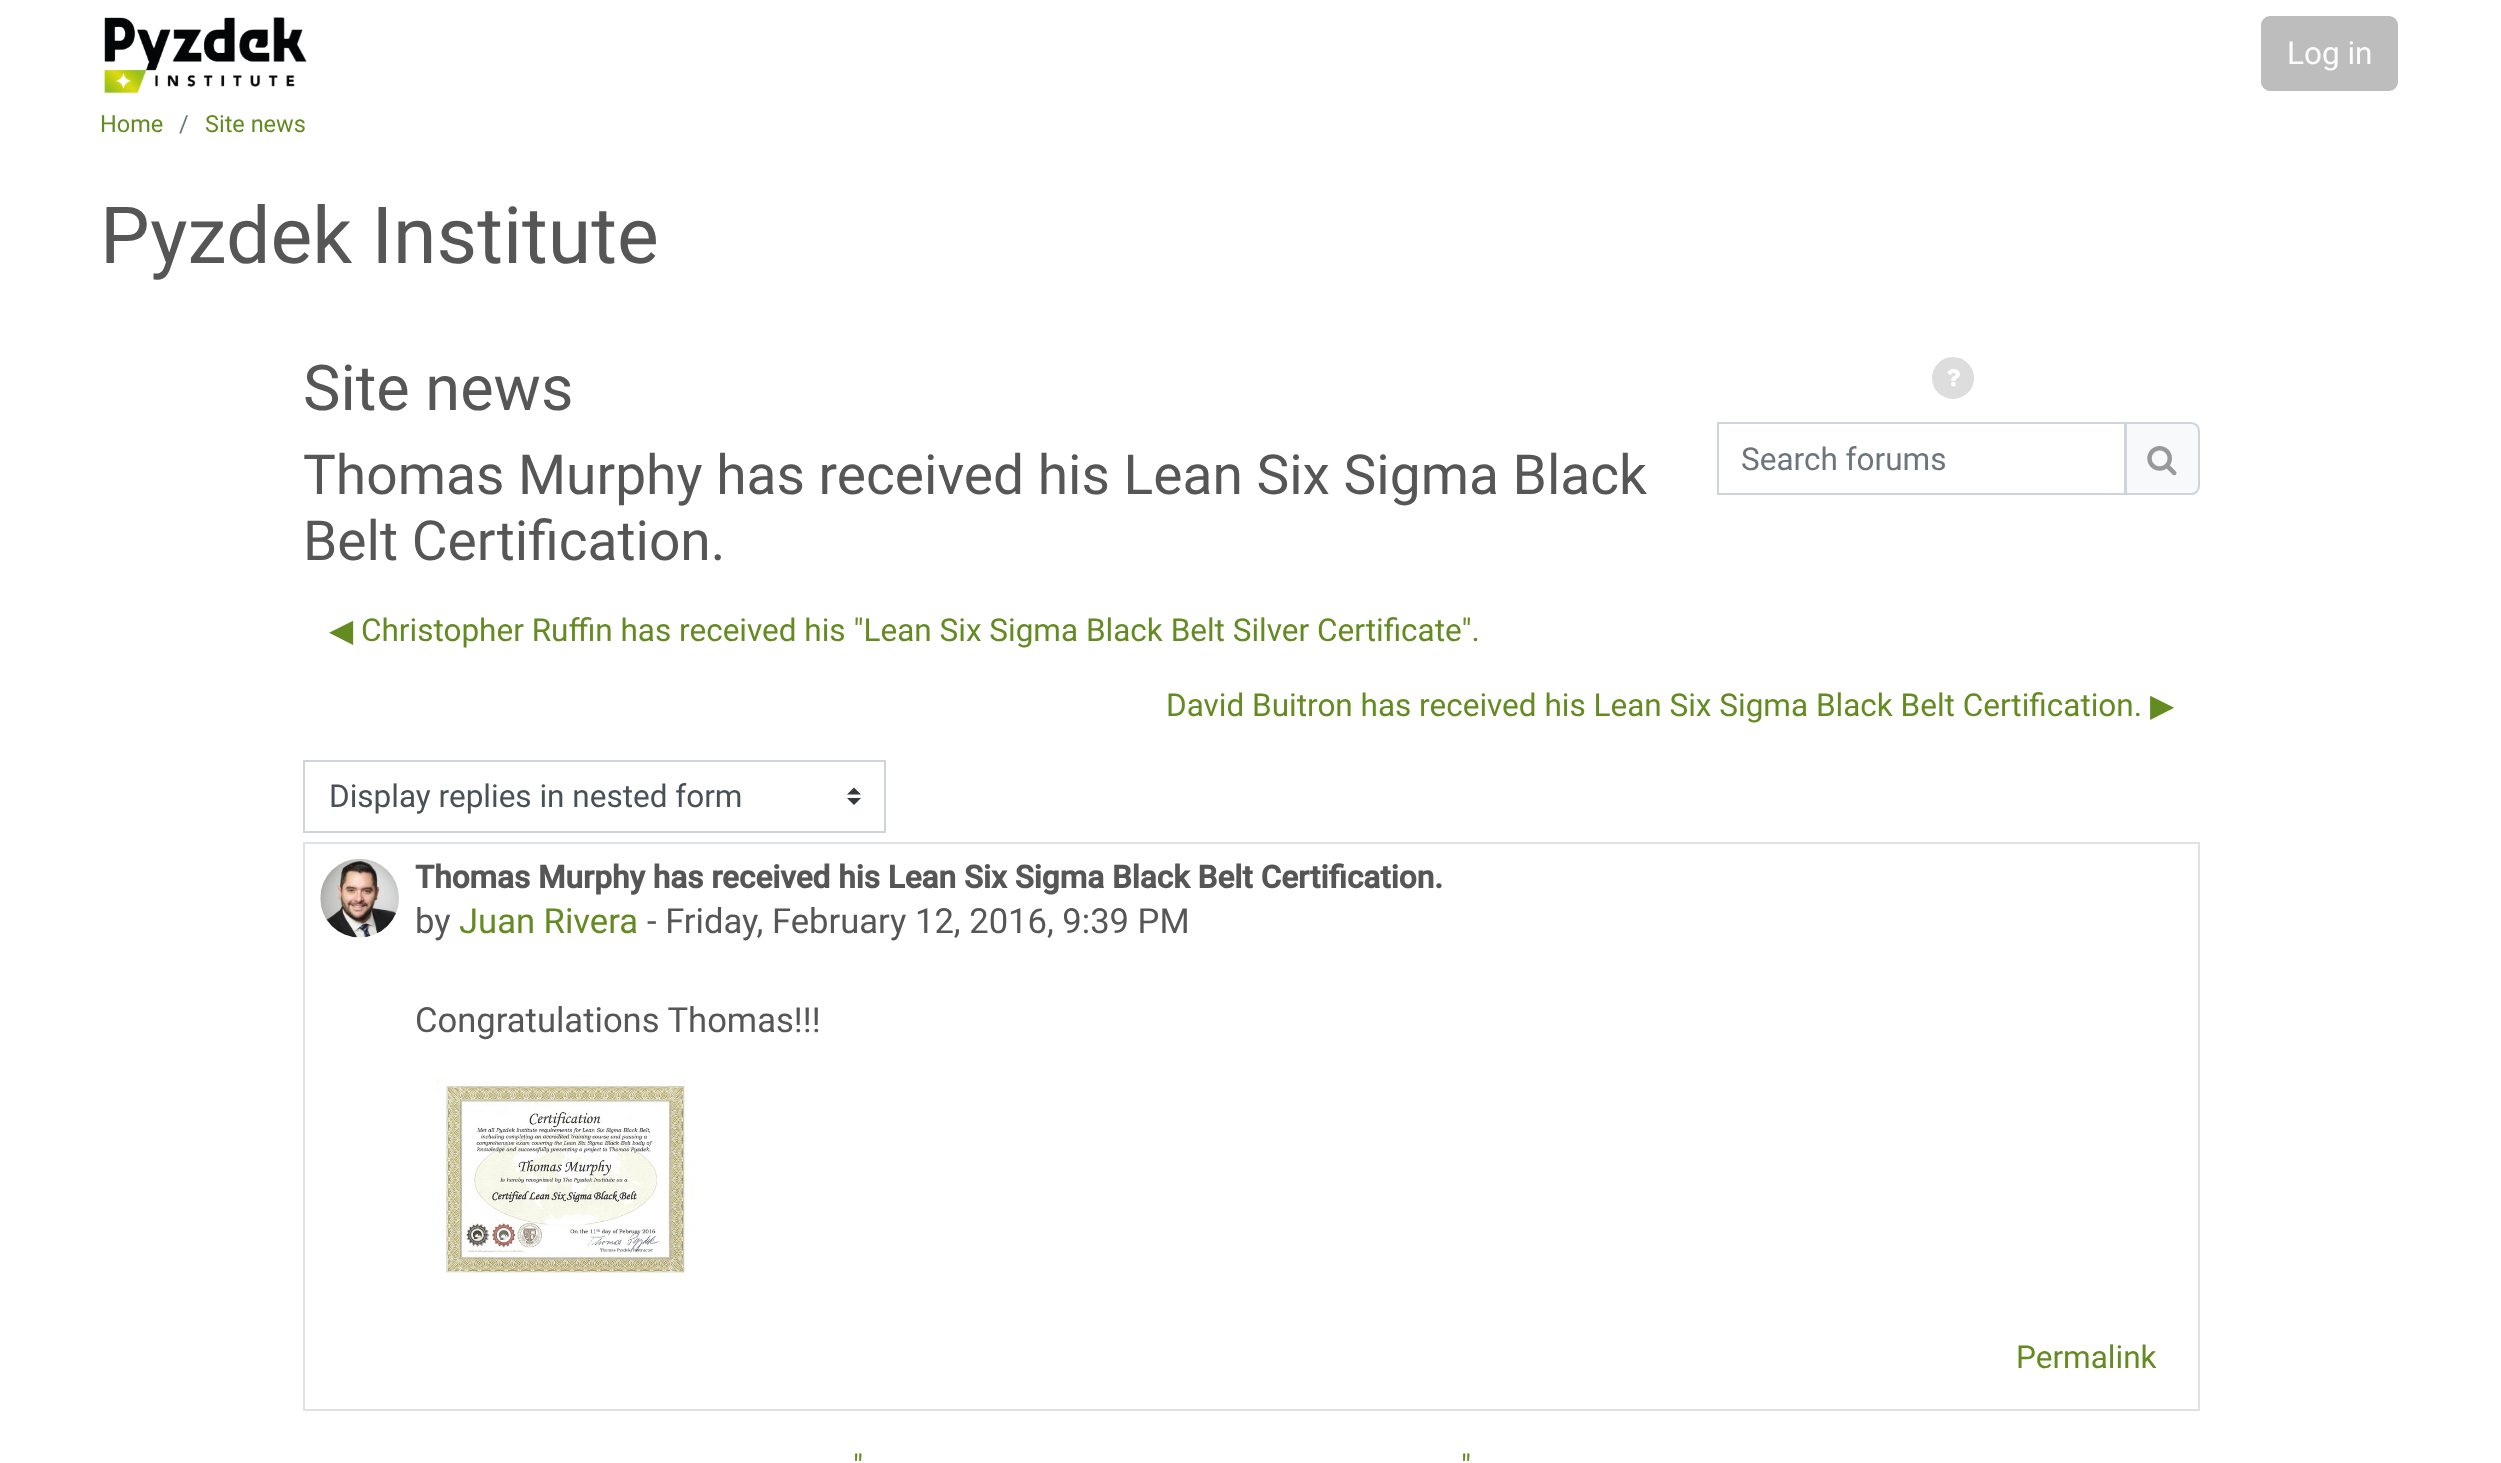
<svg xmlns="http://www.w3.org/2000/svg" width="2501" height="1463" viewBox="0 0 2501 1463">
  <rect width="100%" height="100%" fill="#fff"/>
  <image x="104" y="17" width="203" height="77" href="img/1.png"/>
  <rect x="2262" y="17" width="135" height="73" rx="8" fill="#bdbdbd" stroke="#bdbdbd" stroke-width="2"/>
  <path d="M854 787.5L847 794.5H861ZM854 805L847 798H861Z" fill="#343a40"/>
  <path d="M304 761h581v71H304z" fill="none" stroke="#ced4da" stroke-width="2"/>
  <path d="M304 843h1895v567H304z" fill="none" stroke="#dee2e6" stroke-width="2"/>
  <image x="320" y="859" width="79" height="79" href="img/2.png"/>
  <image x="436" y="1079" width="259" height="200" href="img/3.png"/>
  <circle cx="1953" cy="378" r="17.5" fill="#ddd" stroke="#ddd" stroke-width="7"/>
  <image x="1947" y="368" width="13" height="19" href="img/4.png"/>
  <path d="M1718 423h407v71H1718z" fill="none" stroke="#ced4da" stroke-width="2"/>
  <path d="M2126 423H2191C2195.5 423 2199 426.5 2199 431V486C2199 490.5 2195.5 494 2191 494H2126Z" fill="#f8f9fa" stroke="#ced4da" stroke-width="2"/>
  <image x="2147" y="446" width="30" height="30" href="img/5.png"/>
  <text x="2287" y="64" font-family="Roboto" font-size="31.5" fill="#fcfcfc">Log in</text>
  <text x="100" y="132" font-family="Roboto" font-size="23.5" fill="#648b21">Home</text>
  <text x="179" y="132" font-family="Roboto" font-size="23.5" fill="#6c757d">/</text>
  <text x="205" y="132" font-family="Roboto" font-size="23.5" fill="#648b21">Site news</text>
  <text x="100" y="263" font-family="Roboto" font-size="78.75" fill="#565656">Pyzdek Institute</text>
  <text x="303" y="410" font-family="Roboto" font-size="63" fill="#565656">Site news</text>
  <g font-family="Roboto" font-size="55.1" fill="#565656">
    <text x="303" y="494">Thomas Murphy has received his Lean Six Sigma Black</text>
    <text x="303" y="560">Belt Certification.</text>
  </g>
  <text x="329" y="641" font-family="DejaVu Sans" font-size="31.5" fill="#648b21">◀︎</text>
  <g font-family="Roboto" font-size="31.5" fill="#648b21">
    <text x="361" y="641">Christopher Ruffin has received his "Lean Six Sigma Black Belt Silver Certificate".</text>
    <text x="1166" y="716">David Buitron has received his Lean Six Sigma Black Belt Certification.</text>
  </g>
  <text x="2150" y="716" font-family="DejaVu Sans" font-size="31.5" fill="#648b21">▶︎</text>
  <text x="329" y="807" font-family="Roboto" font-size="31.5" fill="#495057">Display replies in nested form</text>
  <text x="415" y="888" font-family="Roboto" font-size="31.5" font-weight="bold" fill="#565656">Thomas Murphy has received his Lean Six Sigma Black Belt Certification.</text>
  <text x="415" y="933" font-family="Roboto" font-size="34.6" fill="#565656">by</text>
  <text x="459" y="933" font-family="Roboto" font-size="34.6" fill="#648b21">Juan Rivera</text>
  <g font-family="Roboto" font-size="34.6" fill="#565656">
    <text x="647" y="933">- Friday, February 12, 2016, 9:39 PM</text>
    <text x="415" y="1032">Congratulations Thomas!!!</text>
  </g>
  <g font-family="Roboto" font-size="31.5" fill="#648b21">
    <text x="2016" y="1368">Permalink</text>
    <text x="853" y="1477">"</text>
    <text x="1461" y="1477">"</text>
  </g>
  <text x="1741" y="470" font-family="Roboto" font-size="31.5" fill="#6c757d">Search forums</text>
</svg>
